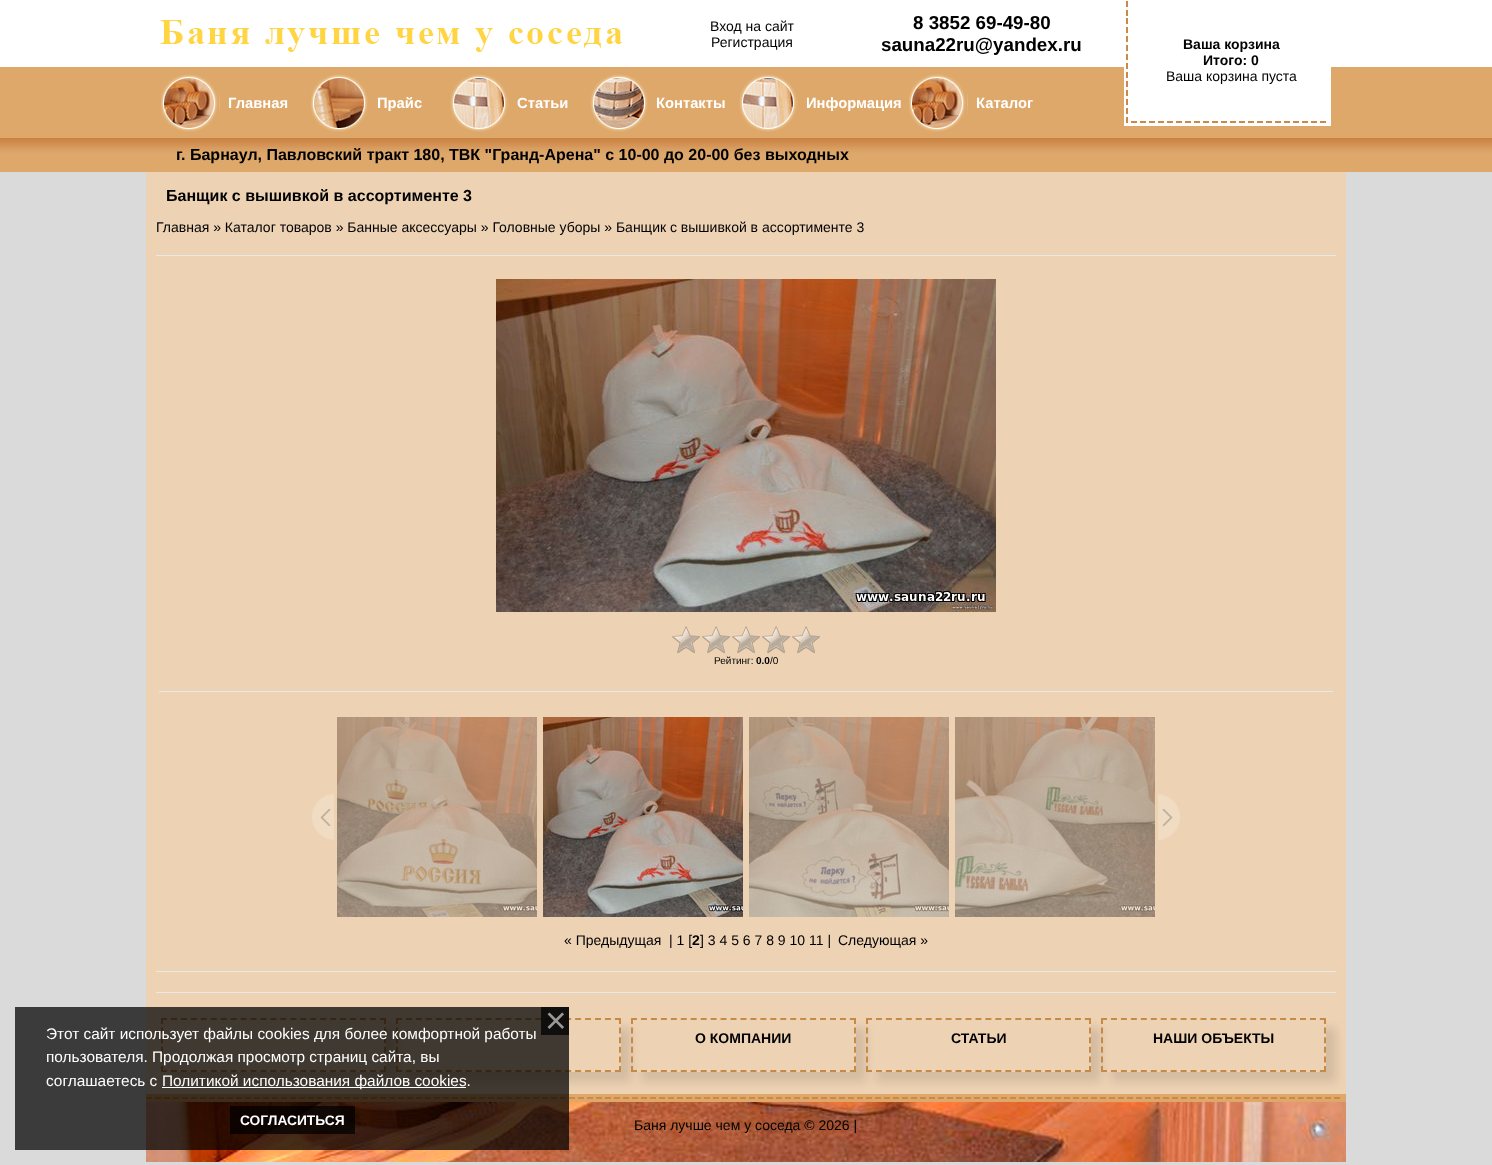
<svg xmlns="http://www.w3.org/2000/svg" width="1492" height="1165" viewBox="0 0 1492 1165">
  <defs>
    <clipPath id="clip1"><path d="M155 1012H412V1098H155ZM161 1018H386V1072H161Z" clip-rule="evenodd"/></clipPath>
    <clipPath id="clip2"><path d="M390 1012H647V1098H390ZM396 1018H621V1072H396Z" clip-rule="evenodd"/></clipPath>
    <clipPath id="clip3"><path d="M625 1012H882V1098H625ZM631 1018H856V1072H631Z" clip-rule="evenodd"/></clipPath>
    <clipPath id="clip4"><path d="M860 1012H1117V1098H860ZM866 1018H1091V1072H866Z" clip-rule="evenodd"/></clipPath>
    <clipPath id="clip5"><path d="M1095 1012H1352V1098H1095ZM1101 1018H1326V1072H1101Z" clip-rule="evenodd"/></clipPath>
  </defs>
  <rect width="100%" height="100%" fill="#dadada"/>
  <image x="0" y="0" width="1492" height="138" href="img/1.png"/>
  <image x="160" y="20" width="463" height="32" href="img/2.png"/>
  <image x="161" y="74" width="59" height="58" href="img/3.png"/>
  <image x="311" y="74" width="57" height="58" href="img/4.png"/>
  <image x="450" y="74" width="59" height="58" href="img/5.png"/>
  <image x="590" y="74" width="58" height="58" href="img/6.png"/>
  <image x="739" y="74" width="59" height="58" href="img/5.png"/>
  <image x="909" y="74" width="59" height="58" href="img/3.png"/>
  <image x="1124" y="1" width="7" height="119" href="img/7.png"/>
  <path d="M1131 67h200v53H1131z" fill="#fff"/>
  <image x="1124" y="120" width="7" height="6" href="img/8.png"/>
  <image x="1131" y="120" width="200" height="6" href="img/9.png"/>
  <image x="0" y="138" width="1492" height="34" href="img/10.png"/>
  <path d="M146 172h1200v915H146z" fill="#edd2b4"/>
  <path d="M156 255h1180v1H156z" fill="#e8e8e8"/>
  <image x="496" y="279" width="500" height="333" href="img/11.png"/>
  <image x="672" y="626" width="148" height="28" href="img/12.png"/>
  <path d="M159 691h1174v1H159z" fill="#e8e8e8"/>
  <image x="312" y="794" width="22" height="46" href="img/13.png"/>
  <image x="337" y="717" width="200" height="200" href="img/14.png"/>
  <image x="543" y="717" width="200" height="200" href="img/15.png"/>
  <image x="749" y="717" width="200" height="200" href="img/16.png"/>
  <image x="955" y="717" width="200" height="200" href="img/17.png"/>
  <image x="1158" y="794" width="22" height="46" href="img/18.png"/>
  <path d="M156 971h1180v1H156z" fill="#e8e8e8"/>
  <path d="M156 992h1180v1H156z" fill="#e8e8e8"/>
  <image x="146" y="1087" width="1200" height="75" href="img/19.png"/>
  <g clip-path="url(#clip1)">
    <path d="M171 1028h225v54H171z" fill="#0000001a" filter="blur(5px)"/>
  </g>
  <path d="M161 1019H386" fill="none" stroke="#c68a48" stroke-width="2" stroke-dasharray="6 3.95"/>
  <path d="M385 1018V1072" fill="none" stroke="#c68a48" stroke-width="2" stroke-dasharray="6 3.6"/>
  <path d="M161 1071H386" fill="none" stroke="#c68a48" stroke-width="2" stroke-dasharray="6 3.95"/>
  <path d="M162 1018V1072" fill="none" stroke="#c68a48" stroke-width="2" stroke-dasharray="6 3.6"/>
  <g clip-path="url(#clip2)">
    <path d="M406 1028h225v54H406z" fill="#0000001a" filter="blur(5px)"/>
  </g>
  <path d="M396 1019H621" fill="none" stroke="#c68a48" stroke-width="2" stroke-dasharray="6 3.95"/>
  <path d="M620 1018V1072" fill="none" stroke="#c68a48" stroke-width="2" stroke-dasharray="6 3.6"/>
  <path d="M396 1071H621" fill="none" stroke="#c68a48" stroke-width="2" stroke-dasharray="6 3.95"/>
  <path d="M397 1018V1072" fill="none" stroke="#c68a48" stroke-width="2" stroke-dasharray="6 3.6"/>
  <g clip-path="url(#clip3)">
    <path d="M641 1028h225v54H641z" fill="#0000001a" filter="blur(5px)"/>
  </g>
  <path d="M631 1019H856" fill="none" stroke="#c68a48" stroke-width="2" stroke-dasharray="6 3.95"/>
  <path d="M855 1018V1072" fill="none" stroke="#c68a48" stroke-width="2" stroke-dasharray="6 3.6"/>
  <path d="M631 1071H856" fill="none" stroke="#c68a48" stroke-width="2" stroke-dasharray="6 3.95"/>
  <path d="M632 1018V1072" fill="none" stroke="#c68a48" stroke-width="2" stroke-dasharray="6 3.6"/>
  <g clip-path="url(#clip4)">
    <path d="M876 1028h225v54H876z" fill="#0000001a" filter="blur(5px)"/>
  </g>
  <path d="M866 1019H1091" fill="none" stroke="#c68a48" stroke-width="2" stroke-dasharray="6 3.95"/>
  <path d="M1090 1018V1072" fill="none" stroke="#c68a48" stroke-width="2" stroke-dasharray="6 3.6"/>
  <path d="M866 1071H1091" fill="none" stroke="#c68a48" stroke-width="2" stroke-dasharray="6 3.95"/>
  <path d="M867 1018V1072" fill="none" stroke="#c68a48" stroke-width="2" stroke-dasharray="6 3.6"/>
  <g clip-path="url(#clip5)">
    <path d="M1111 1028h225v54H1111z" fill="#0000001a" filter="blur(5px)"/>
  </g>
  <path d="M1101 1019H1326" fill="none" stroke="#c68a48" stroke-width="2" stroke-dasharray="6 3.95"/>
  <path d="M1325 1018V1072" fill="none" stroke="#c68a48" stroke-width="2" stroke-dasharray="6 3.6"/>
  <path d="M1101 1071H1326" fill="none" stroke="#c68a48" stroke-width="2" stroke-dasharray="6 3.95"/>
  <path d="M1102 1018V1072" fill="none" stroke="#c68a48" stroke-width="2" stroke-dasharray="6 3.6"/>
  <path d="M15 1007h554v143H15z" fill="#000000ba"/>
  <path d="M541 1007h28v28H541z" fill="#000000ba"/>
  <path d="M230 1106h125v28H230z" fill="#000000ba"/>
  <path d="M162 1087h304v1H162z" fill="#fff"/>
  <g font-family="Liberation Sans" font-size="14" fill="#000">
    <text x="710" y="31">Вход на сайт</text>
    <text x="711" y="47">Регистрация</text>
  </g>
  <g font-family="Liberation Sans" font-size="18.75" font-weight="bold" fill="#000">
    <text x="913" y="29">8 3852 69-49-80</text>
    <text x="881" y="51">sauna22ru@yandex.ru</text>
  </g>
  <g font-family="Liberation Sans" font-size="14.75" font-weight="bold" fill="#fff">
    <text x="228" y="108">Главная</text>
    <text x="377" y="108">Прайс</text>
    <text x="517" y="108">Статьи</text>
    <text x="656" y="108">Контакты</text>
    <text x="806" y="108">Информация</text>
    <text x="976" y="108">Каталог</text>
  </g>
  <g font-family="Liberation Sans" font-size="14" font-weight="bold" fill="#000">
    <text x="1183" y="49">Ваша корзина</text>
    <text x="1203" y="65">Итого: 0</text>
  </g>
  <text x="1166" y="81" font-family="Liberation Sans" font-size="14" fill="#000">Ваша корзина пуста</text>
  <g font-family="Liberation Sans" font-size="16" font-weight="bold" fill="#000">
    <text x="176" y="160">г. Барнаул, Павловский тракт 180, ТВК "Гранд-Арена" с 10-00 до 20-00 без выходных</text>
    <text x="166" y="201">Банщик с вышивкой в ассортименте 3</text>
  </g>
  <text x="156" y="232" font-family="Liberation Sans" font-size="14" fill="#000">Главная » Каталог товаров » Банные аксессуары » Головные уборы » Банщик с вышивкой в ассортименте 3</text>
  <text x="714" y="664" font-family="Liberation Sans" font-size="10" fill="#000">Рейтинг:</text>
  <text x="756" y="664" font-family="Liberation Sans" font-size="10" font-weight="bold" fill="#000">0.0</text>
  <text x="770" y="664" font-family="Liberation Sans" font-size="10" fill="#000">/0</text>
  <g font-family="Liberation Sans" font-size="14" fill="#000">
    <text x="564" y="945">« Предыдущая</text>
    <text x="669" y="945">| 1 [</text>
  </g>
  <text x="692" y="945" font-family="Liberation Sans" font-size="14" font-weight="bold" fill="#000">2</text>
  <g font-family="Liberation Sans" font-size="14" fill="#000">
    <text x="700" y="945">] 3 4 5 6 7 8 9 10 11 |</text>
    <text x="838" y="945">Следующая »</text>
  </g>
  <g font-family="Liberation Sans" font-size="14" font-weight="bold" fill="#000">
    <text x="695" y="1043">О КОМПАНИИ</text>
    <text x="951" y="1043">СТАТЬИ</text>
    <text x="1153" y="1043">НАШИ ОБЪЕКТЫ</text>
  </g>
  <text x="634" y="1130" font-family="Liberation Sans" font-size="14" fill="#000">Баня лучше чем у соседа © 2026 |</text>
  <text x="545" y="1033" font-family="Liberation Sans" font-size="37" fill="#999">×</text>
  <text x="240" y="1125" font-family="Liberation Sans" font-size="13.75" font-weight="bold" fill="#fff">СОГЛАСИТЬСЯ</text>
  <g font-family="Liberation Sans" font-size="15.4" fill="#fff">
    <text x="46" y="1039">Этот сайт использует файлы cookies для более комфортной работы</text>
    <text x="46" y="1062">пользователя. Продолжая просмотр страниц сайта, вы</text>
    <text x="46" y="1086">соглашаетесь с</text>
    <text x="162" y="1086">Политикой использования файлов cookies.</text>
  </g>
</svg>
